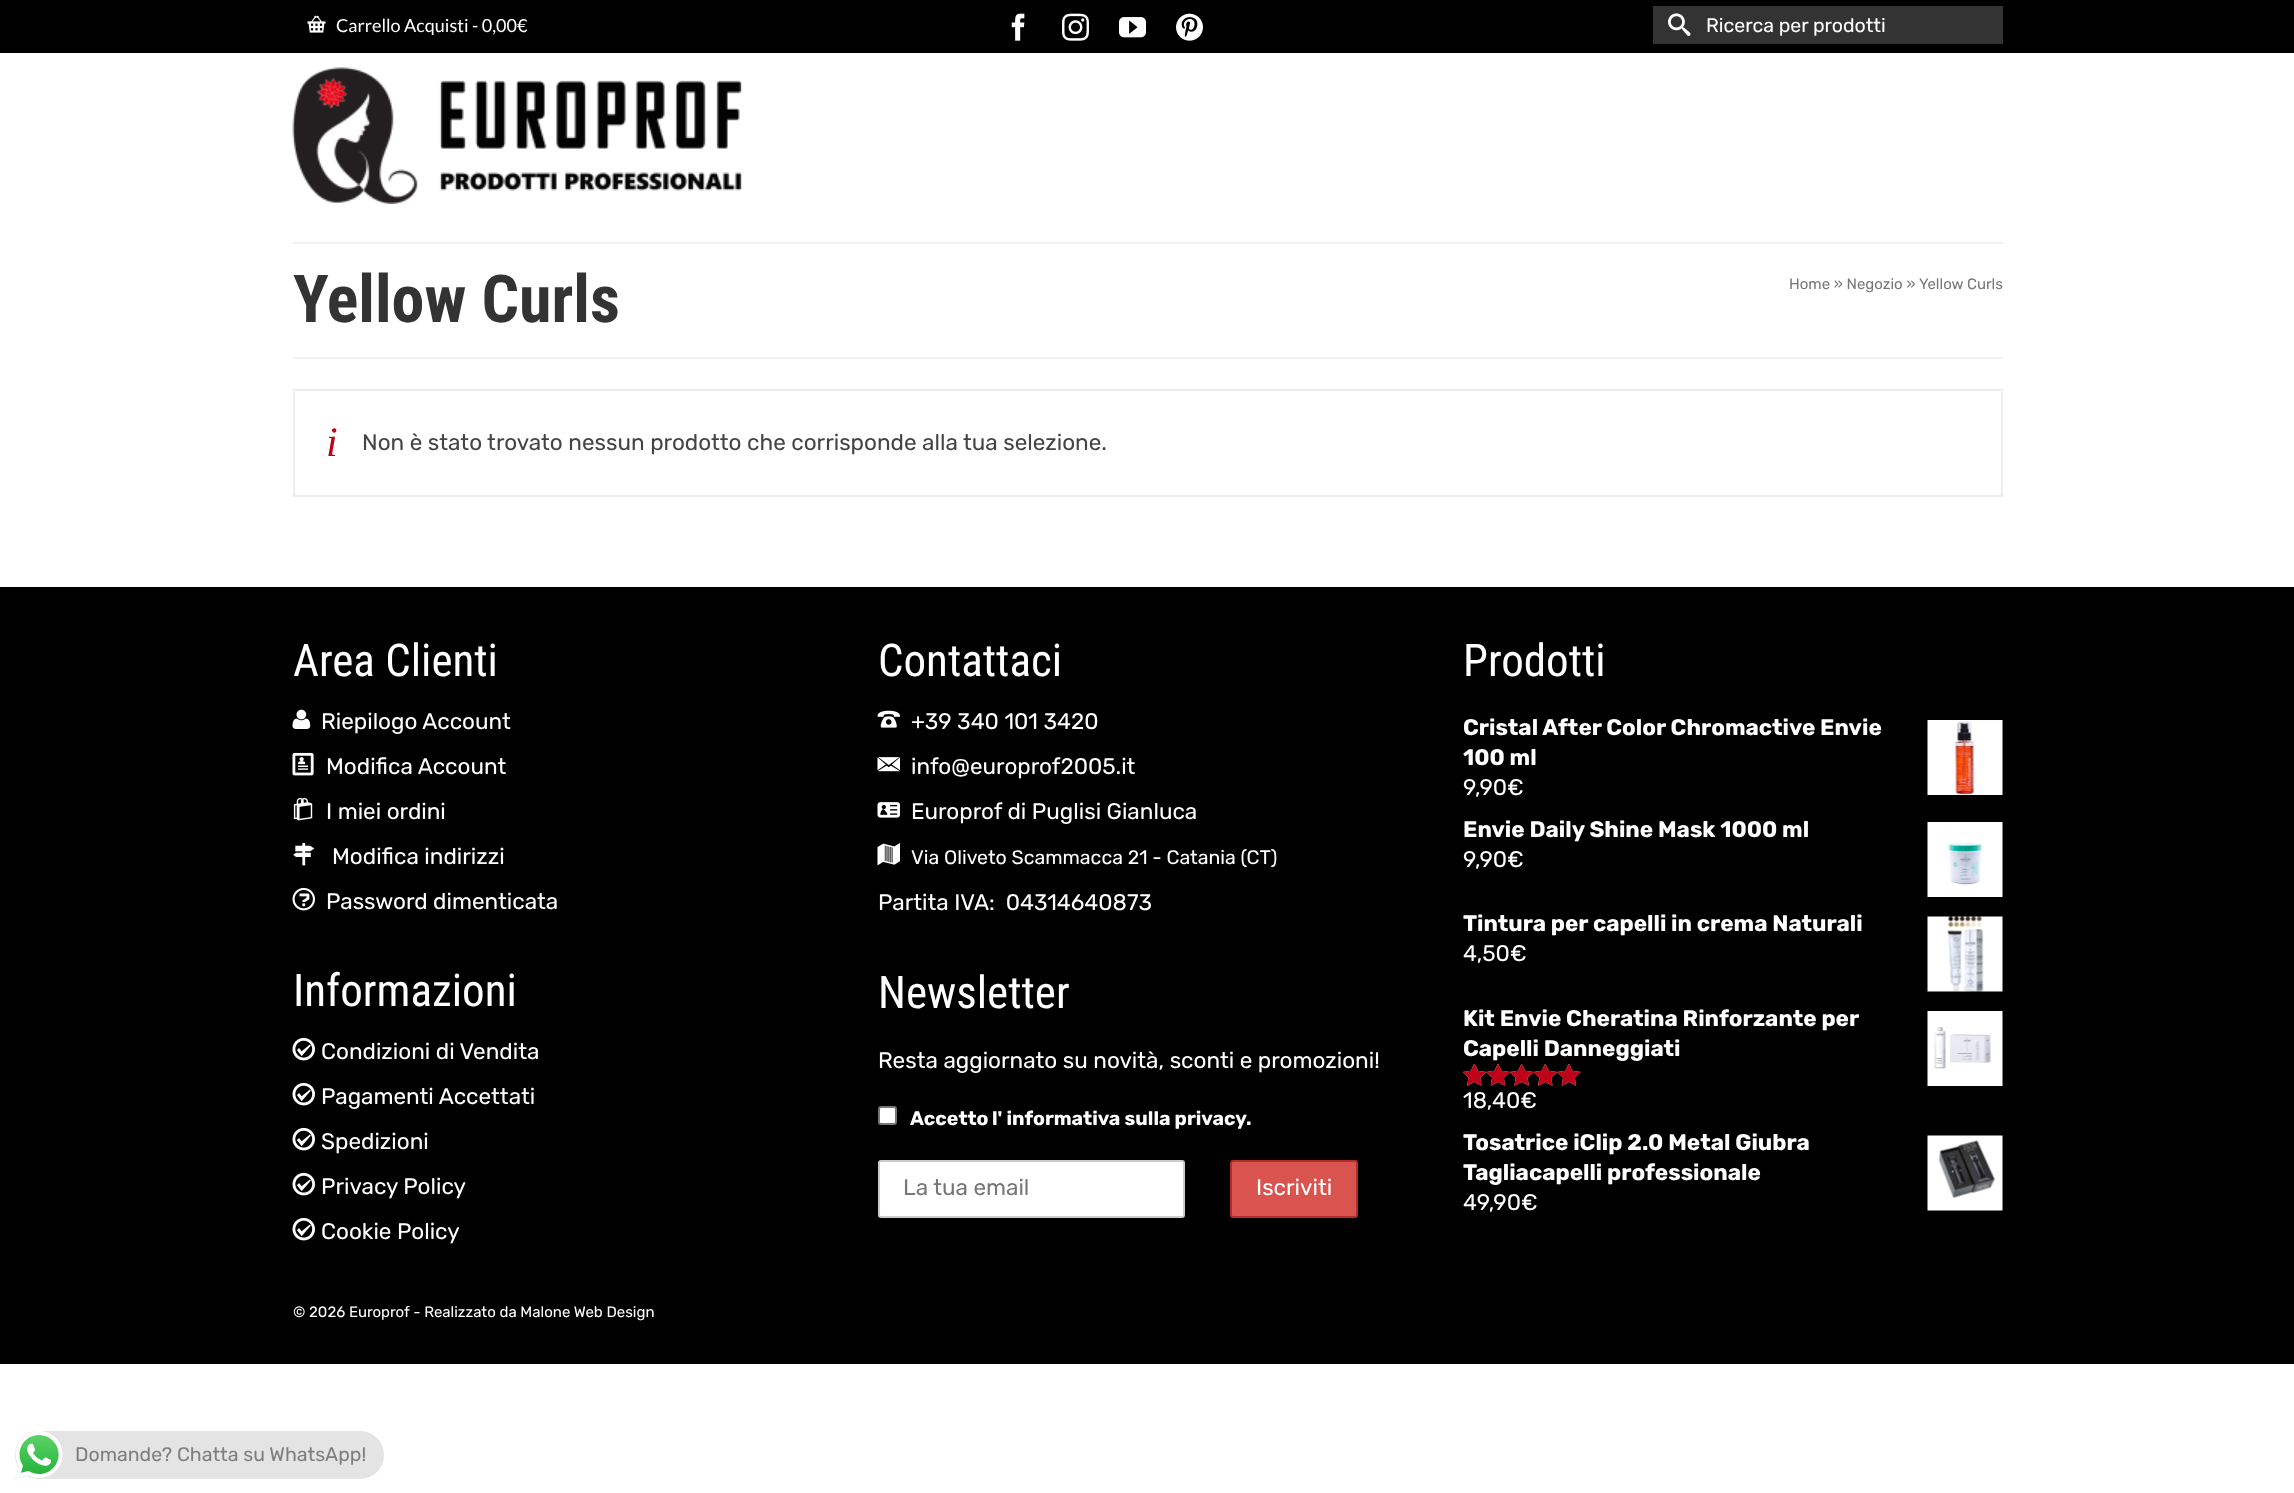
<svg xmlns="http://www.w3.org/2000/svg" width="2294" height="1493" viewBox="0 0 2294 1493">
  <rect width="100%" height="100%" fill="#fff"/>
  <path d="M0 0h2294v53H0z" fill="#000"/>
  <image x="307" y="15" width="19" height="18" href="img/1.png"/>
  <image x="1011" y="13" width="14" height="28" href="img/2.png"/>
  <image x="1062" y="13" width="27" height="28" href="img/3.png"/>
  <image x="1119" y="17" width="27" height="21" href="img/4.png"/>
  <image x="1176" y="13" width="27" height="28" href="img/5.png"/>
  <path d="M1653 6h350v38H1653z" fill="#333"/>
  <image x="1668" y="13" width="23" height="23" href="img/6.png"/>
  <image x="292" y="67" width="450" height="137" href="img/7.png"/>
  <path d="M293 242h1710v2H293z" fill="#f2f2f2"/>
  <path d="M293 357h1710v2H293z" fill="#f2f2f2"/>
  <path d="M294 390h1708v106H294z" fill="none" stroke="#ededed" stroke-width="2"/>
  <path d="M0 587h2294v777H0z" fill="#000"/>
  <image x="292" y="709" width="19" height="20" href="img/8.png"/>
  <image x="292" y="752" width="22" height="24" href="img/9.png"/>
  <image x="293" y="797" width="20" height="24" href="img/10.png"/>
  <image x="293" y="842" width="22" height="24" href="img/11.png"/>
  <image x="292" y="887" width="23" height="24" href="img/12.png"/>
  <image x="292" y="1037" width="23" height="24" href="img/13.png"/>
  <image x="292" y="1082" width="23" height="24" href="img/13.png"/>
  <image x="292" y="1127" width="23" height="24" href="img/13.png"/>
  <image x="292" y="1172" width="23" height="24" href="img/13.png"/>
  <image x="292" y="1217" width="23" height="24" href="img/13.png"/>
  <image x="877" y="710" width="23" height="18" href="img/14.png"/>
  <image x="877" y="757" width="23" height="15" href="img/15.png"/>
  <image x="877" y="802" width="23" height="16" href="img/16.png"/>
  <image x="877" y="843" width="23" height="23" href="img/17.png"/>
  <rect x="879" y="1107" width="17" height="17" rx="2" fill="#fff" stroke="#767676" stroke-width="2"/>
  <rect x="879" y="1161" width="305" height="56" rx="2" fill="#fff" stroke="#ccc" stroke-width="2"/>
  <rect x="1231" y="1161" width="126" height="56" rx="2" fill="#d9534f" stroke="#b52b27" stroke-width="2"/>
  <image x="1927" y="720" width="76" height="75" href="img/18.png"/>
  <image x="1927" y="822" width="76" height="75" href="img/19.png"/>
  <image x="1927" y="916" width="76" height="76" href="img/20.png"/>
  <image x="1927" y="1011" width="76" height="75" href="img/21.png"/>
  <image x="1463" y="1064" width="118" height="22" href="img/22.png"/>
  <image x="1463" y="1064" width="118" height="22" href="img/23.png"/>
  <image x="1927" y="1135" width="76" height="76" href="img/24.png"/>
  <rect x="15" y="1431" width="369" height="48" rx="24" fill="#e4e4e4"/>
  <image x="15" y="1431" width="48" height="48" href="img/25.png"/>
  <text x="336" y="32" font-family="Lato" font-size="18" fill="#fff">Carrello Acquisti - 0,00€</text>
  <text x="1706" y="32" font-family="Rubik" font-size="19.5" fill="#fff">Ricerca per prodotti</text>
  <text x="293" y="322" font-family="Roboto Condensed" font-size="66" font-weight="bold" fill="#333">Yellow Curls</text>
  <g font-family="Rubik" font-size="15" fill="#777">
    <text x="1789" y="289">Home » Negozio »</text>
    <text x="1919" y="289">Yellow Curls</text>
  </g>
  <text x="326" y="456" font-family="Liberation Serif" font-size="42" font-style="italic" fill="#be0318">i</text>
  <text x="362" y="450" font-family="Rubik" font-size="22.5" fill="#444">Non è stato trovato nessun prodotto che corrisponde alla tua selezione.</text>
  <text x="293" y="676" font-family="Roboto Condensed" font-size="45" fill="#fff">Area Clienti</text>
  <g font-family="Rubik" font-size="22.5" fill="#fff">
    <text x="321" y="729">Riepilogo Account</text>
    <text x="326" y="774">Modifica Account</text>
    <text x="326" y="819">I miei ordini</text>
    <text x="332" y="864">Modifica indirizzi</text>
    <text x="326" y="909">Password dimenticata</text>
  </g>
  <text x="293" y="1006" font-family="Roboto Condensed" font-size="45" fill="#fff">Informazioni</text>
  <g font-family="Rubik" font-size="22.5" fill="#fff">
    <text x="321" y="1059">Condizioni di Vendita</text>
    <text x="321" y="1104">Pagamenti Accettati</text>
    <text x="321" y="1149">Spedizioni</text>
    <text x="321" y="1194">Privacy Policy</text>
    <text x="321" y="1239">Cookie Policy</text>
  </g>
  <text x="878" y="676" font-family="Roboto Condensed" font-size="45" fill="#fff">Contattaci</text>
  <g font-family="Rubik" font-size="22.5" fill="#fff">
    <text x="911" y="729">+39 340 101 3420</text>
    <text x="911" y="774">info@europrof2005.it</text>
    <text x="911" y="819">Europrof di Puglisi Gianluca</text>
  </g>
  <text x="911" y="864" font-family="Rubik" font-size="19.5" fill="#fff">Via Oliveto Scammacca 21 - Catania (CT)</text>
  <text x="878" y="910" font-family="Rubik" font-size="22.5" fill="#fff" xml:space="preserve">Partita IVA:  04314640873</text>
  <text x="878" y="1008" font-family="Roboto Condensed" font-size="45" fill="#fff">Newsletter</text>
  <text x="878" y="1068" font-family="Rubik" font-size="22.5" fill="#fff">Resta aggiornato su novità, sconti e promozioni!</text>
  <g font-family="Rubik" font-size="19.5" font-weight="bold" fill="#fff">
    <text x="910" y="1125">Accetto</text>
    <text x="992" y="1125">l' informativa sulla privacy</text>
    <text x="1246" y="1125">.</text>
  </g>
  <text x="903" y="1195" font-family="Rubik" font-size="22.5" fill="#777">La tua email</text>
  <text x="1256" y="1195" font-family="Rubik" font-size="22.5" fill="#fff">Iscriviti</text>
  <text x="1463" y="676" font-family="Roboto Condensed" font-size="45" fill="#fff">Prodotti</text>
  <g font-family="Rubik" font-size="22.5" font-weight="bold" fill="#fff">
    <text x="1463" y="735">Cristal After Color Chromactive Envie</text>
    <text x="1463" y="765">100 ml</text>
  </g>
  <text x="1463" y="795" font-family="Rubik" font-size="22.5" fill="#fff">9,90€</text>
  <text x="1463" y="837" font-family="Rubik" font-size="22.5" font-weight="bold" fill="#fff">Envie Daily Shine Mask 1000 ml</text>
  <text x="1463" y="867" font-family="Rubik" font-size="22.5" fill="#fff">9,90€</text>
  <text x="1463" y="931" font-family="Rubik" font-size="22.5" font-weight="bold" fill="#fff">Tintura per capelli in crema Naturali</text>
  <text x="1463" y="961" font-family="Rubik" font-size="22.5" fill="#fff">4,50€</text>
  <g font-family="Rubik" font-size="22.5" font-weight="bold" fill="#fff">
    <text x="1463" y="1026">Kit Envie Cheratina Rinforzante per</text>
    <text x="1463" y="1056">Capelli Danneggiati</text>
  </g>
  <text x="1463" y="1108" font-family="Rubik" font-size="22.5" fill="#fff">18,40€</text>
  <g font-family="Rubik" font-size="22.5" font-weight="bold" fill="#fff">
    <text x="1463" y="1150">Tosatrice iClip 2.0 Metal Giubra</text>
    <text x="1463" y="1180">Tagliacapelli professionale</text>
  </g>
  <text x="1463" y="1210" font-family="Rubik" font-size="22.5" fill="#fff">49,90€</text>
  <text x="293" y="1317" font-family="Rubik" font-size="15" fill="#fff">© 2026 Europrof - Realizzato da Malone Web Design</text>
  <text x="75" y="1461" font-family="Rubik" font-size="19.5" fill="#7f7d7d">Domande? Chatta su WhatsApp!</text>
</svg>
